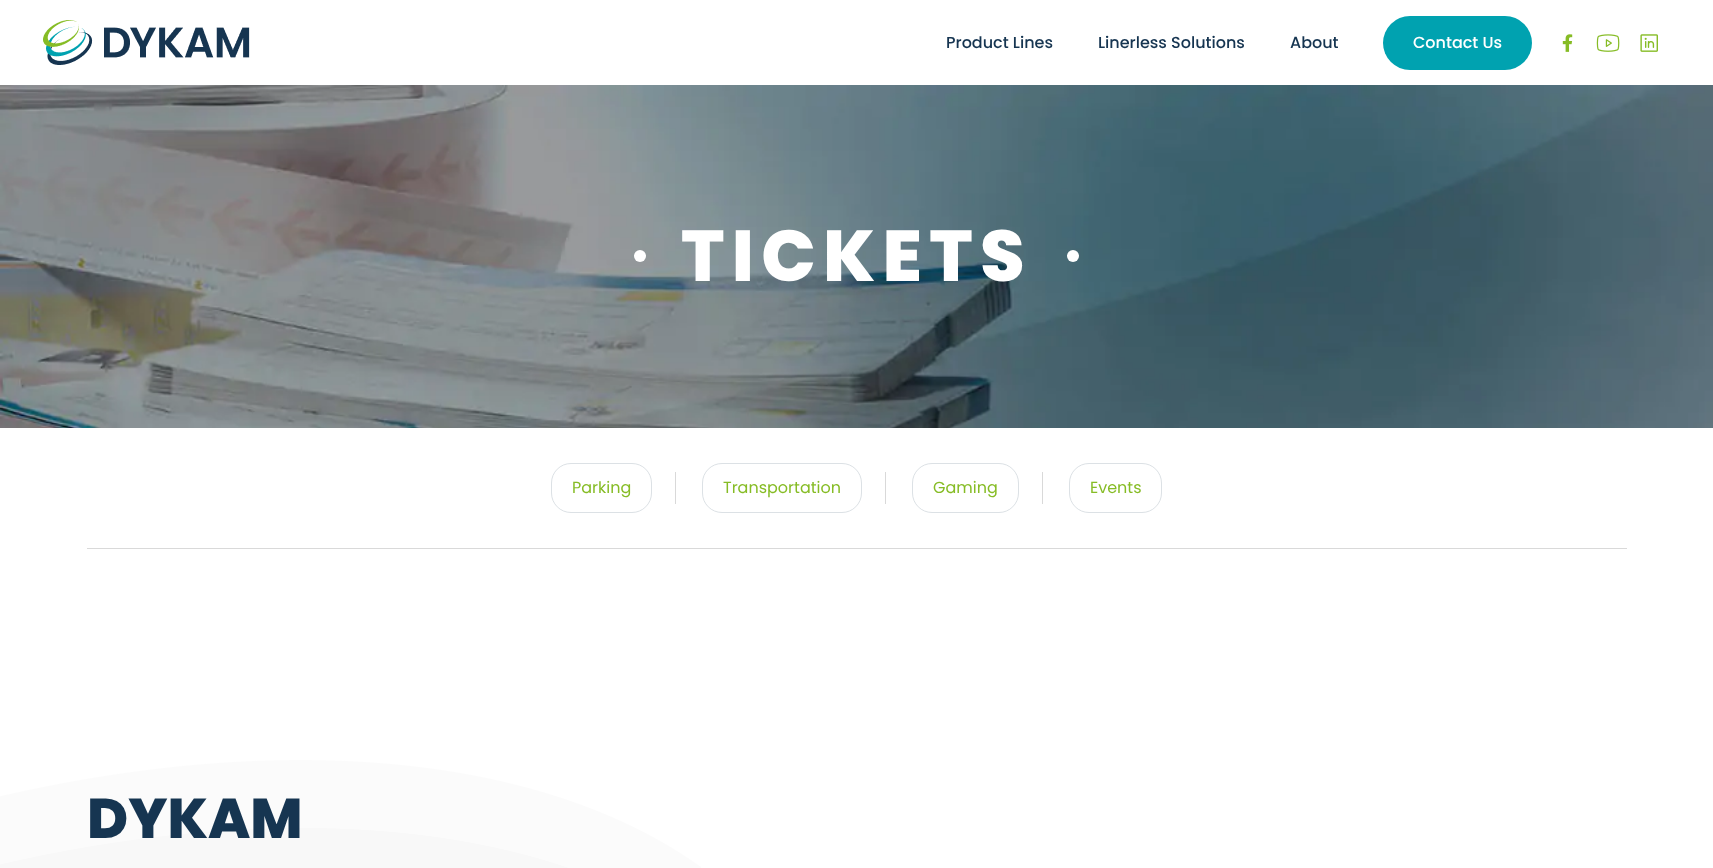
<svg xmlns="http://www.w3.org/2000/svg" width="1713" height="868" viewBox="0 0 1713 868">
  <rect width="100%" height="100%" fill="#fff"/>
  <image x="43" y="20" width="207" height="45" href="img/1.png"/>
  <rect x="1383" y="16" width="149" height="54" rx="27" fill="#00a2b0"/>
  <image x="1562" y="34" width="11" height="18" href="img/2.png"/>
  <image x="1596" y="34" width="24" height="18" href="img/3.png"/>
  <image x="1640" y="34" width="18" height="18" href="img/4.png"/>
  <image x="0" y="85" width="1713" height="343" href="img/5.png"/>
  <circle cx="640" cy="256" r="6" fill="#fff"/>
  <circle cx="1073" cy="256" r="6" fill="#fff"/>
  <path d="M87 548h1540v1H87z" fill="#d9d9d9"/>
  <rect x="551.5" y="463.5" width="100" height="49" rx="19.5" fill="none" stroke="#dce1e5"/>
  <path d="M675 472h1v32H675z" fill="#d9d9d9"/>
  <rect x="702.5" y="463.5" width="159" height="49" rx="19.5" fill="none" stroke="#dce1e5"/>
  <path d="M885 472h1v32H885z" fill="#d9d9d9"/>
  <rect x="912.5" y="463.5" width="106" height="49" rx="19.5" fill="none" stroke="#dce1e5"/>
  <path d="M1042 472h1v32H1042z" fill="#d9d9d9"/>
  <rect x="1069.5" y="463.5" width="92" height="49" rx="19.5" fill="none" stroke="#dce1e5"/>
  <image x="0" y="760" width="701" height="108" href="img/6.png"/>
  <g font-family="Poppins" font-size="16" font-weight="500" fill="#163551">
    <text x="946" y="48">Product Lines</text>
    <text x="1098" y="48">Linerless Solutions</text>
    <text x="1290" y="48">About</text>
  </g>
  <text x="1413" y="48" font-family="Poppins" font-size="16" font-weight="500" fill="#fff">Contact Us</text>
  <text x="681" y="281" font-family="Poppins" font-size="72" font-weight="800" letter-spacing="7.25" fill="#fff">TICKETS</text>
  <g font-family="Poppins" font-size="16" fill="#86bc25">
    <text x="572" y="493">Parking</text>
    <text x="723" y="493">Transportation</text>
    <text x="933" y="493">Gaming</text>
    <text x="1090" y="493">Events</text>
  </g>
  <text x="87" y="838" font-family="Poppins" font-size="56" font-weight="800" fill="#163551">DYKAM</text>
</svg>
